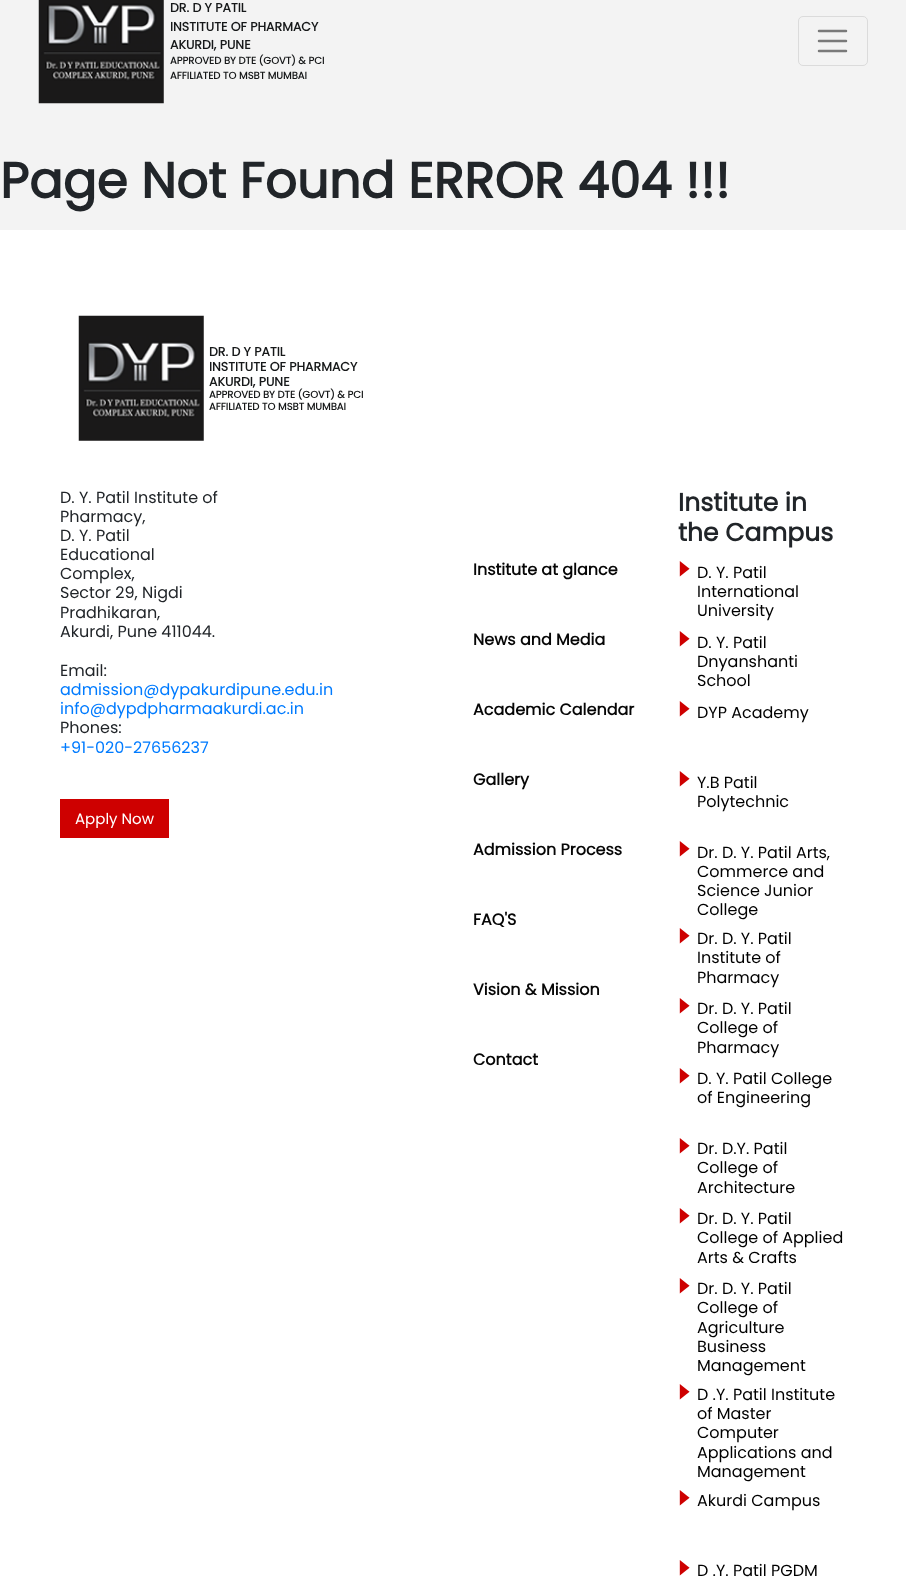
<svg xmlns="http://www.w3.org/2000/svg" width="906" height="1577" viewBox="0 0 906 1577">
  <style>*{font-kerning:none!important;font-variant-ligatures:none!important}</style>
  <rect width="100%" height="100%" fill="#f3f3f3"/>
  <image x="38" y="0" width="126" height="104" href="img/1.png"/>
  <rect x="798.5" y="16.5" width="69" height="49" rx="4.5" fill="none" stroke="#dbdbdb"/>
  <path d="M819 31H846M819 41H846M819 51H846" fill="none" stroke="#7a7a7a" stroke-width="2.5" stroke-linecap="round"/>
  <path d="M0 230h906v1347H0z" fill="#fff"/>
  <image x="78" y="315" width="126" height="126" href="img/2.png"/>
  <path d="M60 799h109v39H60z" fill="#ce0000"/>
  <g font-family="Poppins" font-size="12.5" font-weight="bold" fill="#161819">
    <text x="170" y="12">DR. D Y PATIL</text>
    <text x="170" y="31">INSTITUTE OF PHARMACY</text>
    <text x="170" y="49">AKURDI, PUNE</text>
  </g>
  <g font-family="Poppins" font-size="10" font-weight="bold" fill="#161819">
    <text x="170" y="64">APPROVED BY DTE (GOVT) &amp; PCI</text>
    <text x="170" y="79">AFFILIATED TO MSBT MUMBAI</text>
  </g>
  <text x="0" y="198" font-family="Poppins" font-size="50" font-weight="bold" fill="#212529">Page Not Found ERROR 404 !!!</text>
  <g font-family="Poppins" font-size="12.5" font-weight="bold" fill="#161819">
    <text x="209" y="356">DR. D Y PATIL</text>
    <text x="209" y="371">INSTITUTE OF PHARMACY</text>
    <text x="209" y="386">AKURDI, PUNE</text>
  </g>
  <g font-family="Poppins" font-size="10" font-weight="bold" fill="#161819">
    <text x="209" y="398">APPROVED BY DTE (GOVT) &amp; PCI</text>
    <text x="209" y="410">AFFILIATED TO MSBT MUMBAI</text>
  </g>
  <g font-family="Poppins" font-size="16" fill="#212529">
    <text x="60" y="503">D. Y. Patil Institute of</text>
    <text x="60" y="522">Pharmacy,</text>
    <text x="60" y="541">D. Y. Patil</text>
    <text x="60" y="560">Educational</text>
    <text x="60" y="579">Complex,</text>
    <text x="60" y="598">Sector 29, Nigdi</text>
    <text x="60" y="618">Pradhikaran,</text>
    <text x="60" y="637">Akurdi, Pune 411044.</text>
    <text x="60" y="676">Email:</text>
  </g>
  <g font-family="Poppins" font-size="16" fill="#007bff">
    <text x="60" y="695">admission@dypakurdipune.edu.in</text>
    <text x="60" y="714">info@dypdpharmaakurdi.ac.in</text>
  </g>
  <text x="60" y="733" font-family="Poppins" font-size="16" fill="#212529">Phones:</text>
  <text x="60" y="753" font-family="Poppins" font-size="16" fill="#007bff">+91-020-27656237</text>
  <text x="75" y="824" font-family="Poppins" font-size="15" fill="#fff">Apply Now</text>
  <g font-family="Poppins" font-size="16" font-weight="bold" fill="#060606">
    <text x="473" y="575">Institute at glance</text>
    <text x="473" y="645">News and Media</text>
    <text x="473" y="715">Academic Calendar</text>
    <text x="473" y="785">Gallery</text>
    <text x="473" y="855">Admission Process</text>
    <text x="473" y="925">FAQ'S</text>
    <text x="473" y="995">Vision &amp; Mission</text>
    <text x="473" y="1065">Contact</text>
  </g>
  <g font-family="Poppins" font-size="25" font-weight="bold" fill="#212529">
    <text x="678" y="511">Institute in</text>
    <text x="678" y="541">the Campus</text>
  </g>
  <text x="678" y="580" font-family="'Noto Sans Symbols 2'" font-size="35" fill="#ce0000">🢒</text>
  <g font-family="Poppins" font-size="16" fill="#000">
    <text x="697" y="578">D. Y. Patil</text>
    <text x="697" y="597">International</text>
    <text x="697" y="616">University</text>
  </g>
  <text x="678" y="650" font-family="'Noto Sans Symbols 2'" font-size="35" fill="#ce0000">🢒</text>
  <g font-family="Poppins" font-size="16" fill="#000">
    <text x="697" y="648">D. Y. Patil</text>
    <text x="697" y="667">Dnyanshanti</text>
    <text x="697" y="686">School</text>
  </g>
  <text x="678" y="720" font-family="'Noto Sans Symbols 2'" font-size="35" fill="#ce0000">🢒</text>
  <text x="697" y="718" font-family="Poppins" font-size="16" fill="#000">DYP Academy</text>
  <text x="678" y="790" font-family="'Noto Sans Symbols 2'" font-size="35" fill="#ce0000">🢒</text>
  <g font-family="Poppins" font-size="16" fill="#000">
    <text x="697" y="788">Y.B Patil</text>
    <text x="697" y="807">Polytechnic</text>
  </g>
  <text x="678" y="860" font-family="'Noto Sans Symbols 2'" font-size="35" fill="#ce0000">🢒</text>
  <g font-family="Poppins" font-size="16" fill="#000">
    <text x="697" y="858">Dr. D. Y. Patil Arts,</text>
    <text x="697" y="877">Commerce and</text>
    <text x="697" y="896">Science Junior</text>
    <text x="697" y="915">College</text>
  </g>
  <text x="678" y="947" font-family="'Noto Sans Symbols 2'" font-size="35" fill="#ce0000">🢒</text>
  <g font-family="Poppins" font-size="16" fill="#000">
    <text x="697" y="944">Dr. D. Y. Patil</text>
    <text x="697" y="963">Institute of</text>
    <text x="697" y="983">Pharmacy</text>
  </g>
  <text x="678" y="1017" font-family="'Noto Sans Symbols 2'" font-size="35" fill="#ce0000">🢒</text>
  <g font-family="Poppins" font-size="16" fill="#000">
    <text x="697" y="1014">Dr. D. Y. Patil</text>
    <text x="697" y="1033">College of</text>
    <text x="697" y="1053">Pharmacy</text>
  </g>
  <text x="678" y="1087" font-family="'Noto Sans Symbols 2'" font-size="35" fill="#ce0000">🢒</text>
  <g font-family="Poppins" font-size="16" fill="#000">
    <text x="697" y="1084">D. Y. Patil College</text>
    <text x="697" y="1103">of Engineering</text>
  </g>
  <text x="678" y="1157" font-family="'Noto Sans Symbols 2'" font-size="35" fill="#ce0000">🢒</text>
  <g font-family="Poppins" font-size="16" fill="#000">
    <text x="697" y="1154">Dr. D.Y. Patil</text>
    <text x="697" y="1173">College of</text>
    <text x="697" y="1193">Architecture</text>
  </g>
  <text x="678" y="1227" font-family="'Noto Sans Symbols 2'" font-size="35" fill="#ce0000">🢒</text>
  <g font-family="Poppins" font-size="16" fill="#000">
    <text x="697" y="1224">Dr. D. Y. Patil</text>
    <text x="697" y="1243">College of Applied</text>
    <text x="697" y="1263">Arts &amp; Crafts</text>
  </g>
  <text x="678" y="1297" font-family="'Noto Sans Symbols 2'" font-size="35" fill="#ce0000">🢒</text>
  <g font-family="Poppins" font-size="16" fill="#000">
    <text x="697" y="1294">Dr. D. Y. Patil</text>
    <text x="697" y="1313">College of</text>
    <text x="697" y="1333">Agriculture</text>
    <text x="697" y="1352">Business</text>
    <text x="697" y="1371">Management</text>
  </g>
  <text x="678" y="1403" font-family="'Noto Sans Symbols 2'" font-size="35" fill="#ce0000">🢒</text>
  <g font-family="Poppins" font-size="16" fill="#000">
    <text x="697" y="1400">D .Y. Patil Institute</text>
    <text x="697" y="1419">of Master</text>
    <text x="697" y="1438">Computer</text>
    <text x="697" y="1458">Applications and</text>
    <text x="697" y="1477">Management</text>
  </g>
  <text x="678" y="1509" font-family="'Noto Sans Symbols 2'" font-size="35" fill="#ce0000">🢒</text>
  <text x="697" y="1506" font-family="Poppins" font-size="16" fill="#000">Akurdi Campus</text>
  <text x="678" y="1579" font-family="'Noto Sans Symbols 2'" font-size="35" fill="#ce0000">🢒</text>
  <text x="697" y="1576" font-family="Poppins" font-size="16" fill="#000">D .Y. Patil PGDM</text>
</svg>
